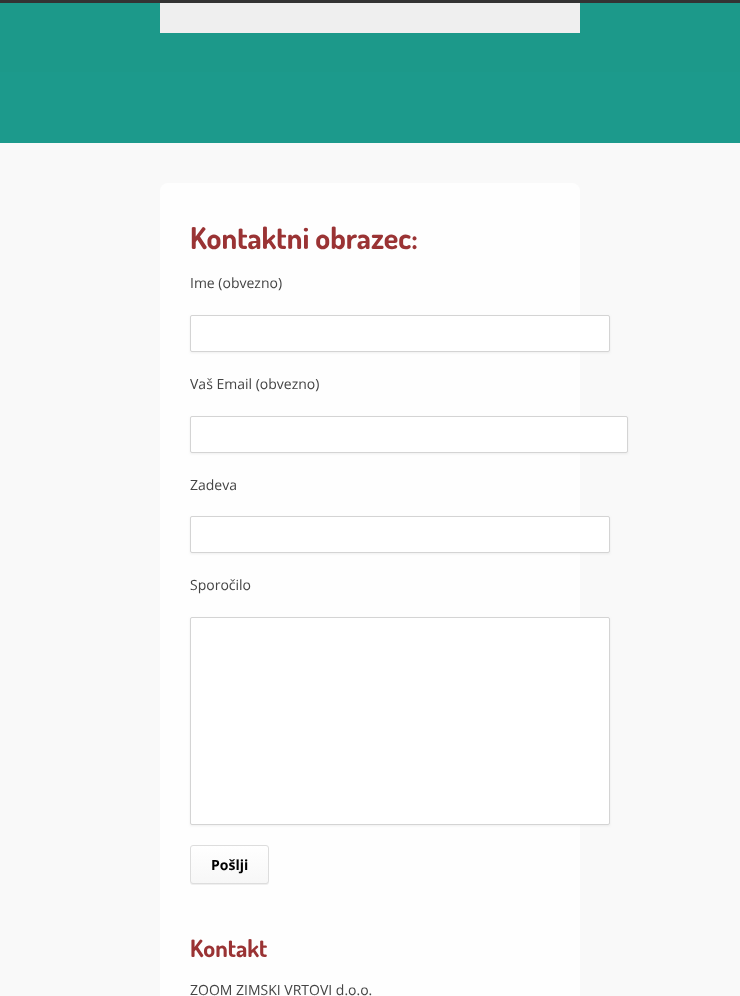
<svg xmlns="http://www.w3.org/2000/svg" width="740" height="996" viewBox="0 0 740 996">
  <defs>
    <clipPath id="clip1"><rect x="190" y="845" width="79" height="39" rx="3"/></clipPath>
    <linearGradient id="g1" gradientUnits="userSpaceOnUse" x1="230" y1="883" x2="230" y2="846"><stop offset="0" stop-color="#f7f7f7"/><stop offset="1" stop-color="#fff"/></linearGradient>
  </defs>
  <rect width="100%" height="100%" fill="#333"/>
  <path d="M0 3h740v69H0z" fill="#1c998a"/>
  <path d="M160 3h420v30H160z" fill="#efefef"/>
  <path d="M0 72h740v71H0z" fill="#1c9a8c"/>
  <path d="M0 143h740v853H0z" fill="#f9f9f9"/>
  <rect x="160" y="183" width="420" height="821" rx="8" fill="#fefefe"/>
  <rect x="190" y="316" width="420" height="37" rx="2" fill="#b4b4b433" filter="blur(1px)"/>
  <rect x="190.5" y="315.5" width="419" height="36" rx="1.5" fill="#fff" stroke="#d4d4d4"/>
  <rect x="190" y="417" width="438" height="37" rx="2" fill="#b4b4b433" filter="blur(1px)"/>
  <rect x="190.5" y="416.5" width="437" height="36" rx="1.5" fill="#fff" stroke="#d4d4d4"/>
  <rect x="190" y="517" width="420" height="37" rx="2" fill="#b4b4b433" filter="blur(1px)"/>
  <rect x="190.5" y="516.5" width="419" height="36" rx="1.5" fill="#fff" stroke="#d4d4d4"/>
  <rect x="190" y="618" width="420" height="208" rx="2" fill="#b4b4b433" filter="blur(1px)"/>
  <rect x="190.5" y="617.5" width="419" height="207" rx="1.5" fill="#fff" stroke="#d4d4d4"/>
  <rect x="190" y="846" width="79" height="39" rx="3" fill="#b4b4b433" filter="blur(0.5px)"/>
  <g clip-path="url(#clip1)">
    <path d="M190 846h79v37H190z" fill="url(#g1)"/>
  </g>
  <rect x="190.5" y="845.5" width="78" height="38" rx="2.5" fill="none" stroke="#ddd"/>
  <text x="190" y="249" font-family="Dosis" font-size="30" font-weight="bold" fill="#9a3334">Kontaktni obrazec:</text>
  <g font-family="Open Sans" font-size="14" fill="#444">
    <text x="190" y="288">Ime (obvezno)</text>
    <text x="190" y="389">Vaš Email (obvezno)</text>
    <text x="190" y="490">Zadeva</text>
    <text x="190" y="590">Sporočilo</text>
  </g>
  <text x="211" y="870" font-family="Open Sans" font-size="14" font-weight="bold" fill="#000">Pošlji</text>
  <text x="190" y="957" font-family="Dosis" font-size="24" font-weight="bold" fill="#9a3334">Kontakt</text>
  <text x="190" y="995" font-family="Open Sans" font-size="14" fill="#444">ZOOM ZIMSKI VRTOVI d.o.o.</text>
</svg>
